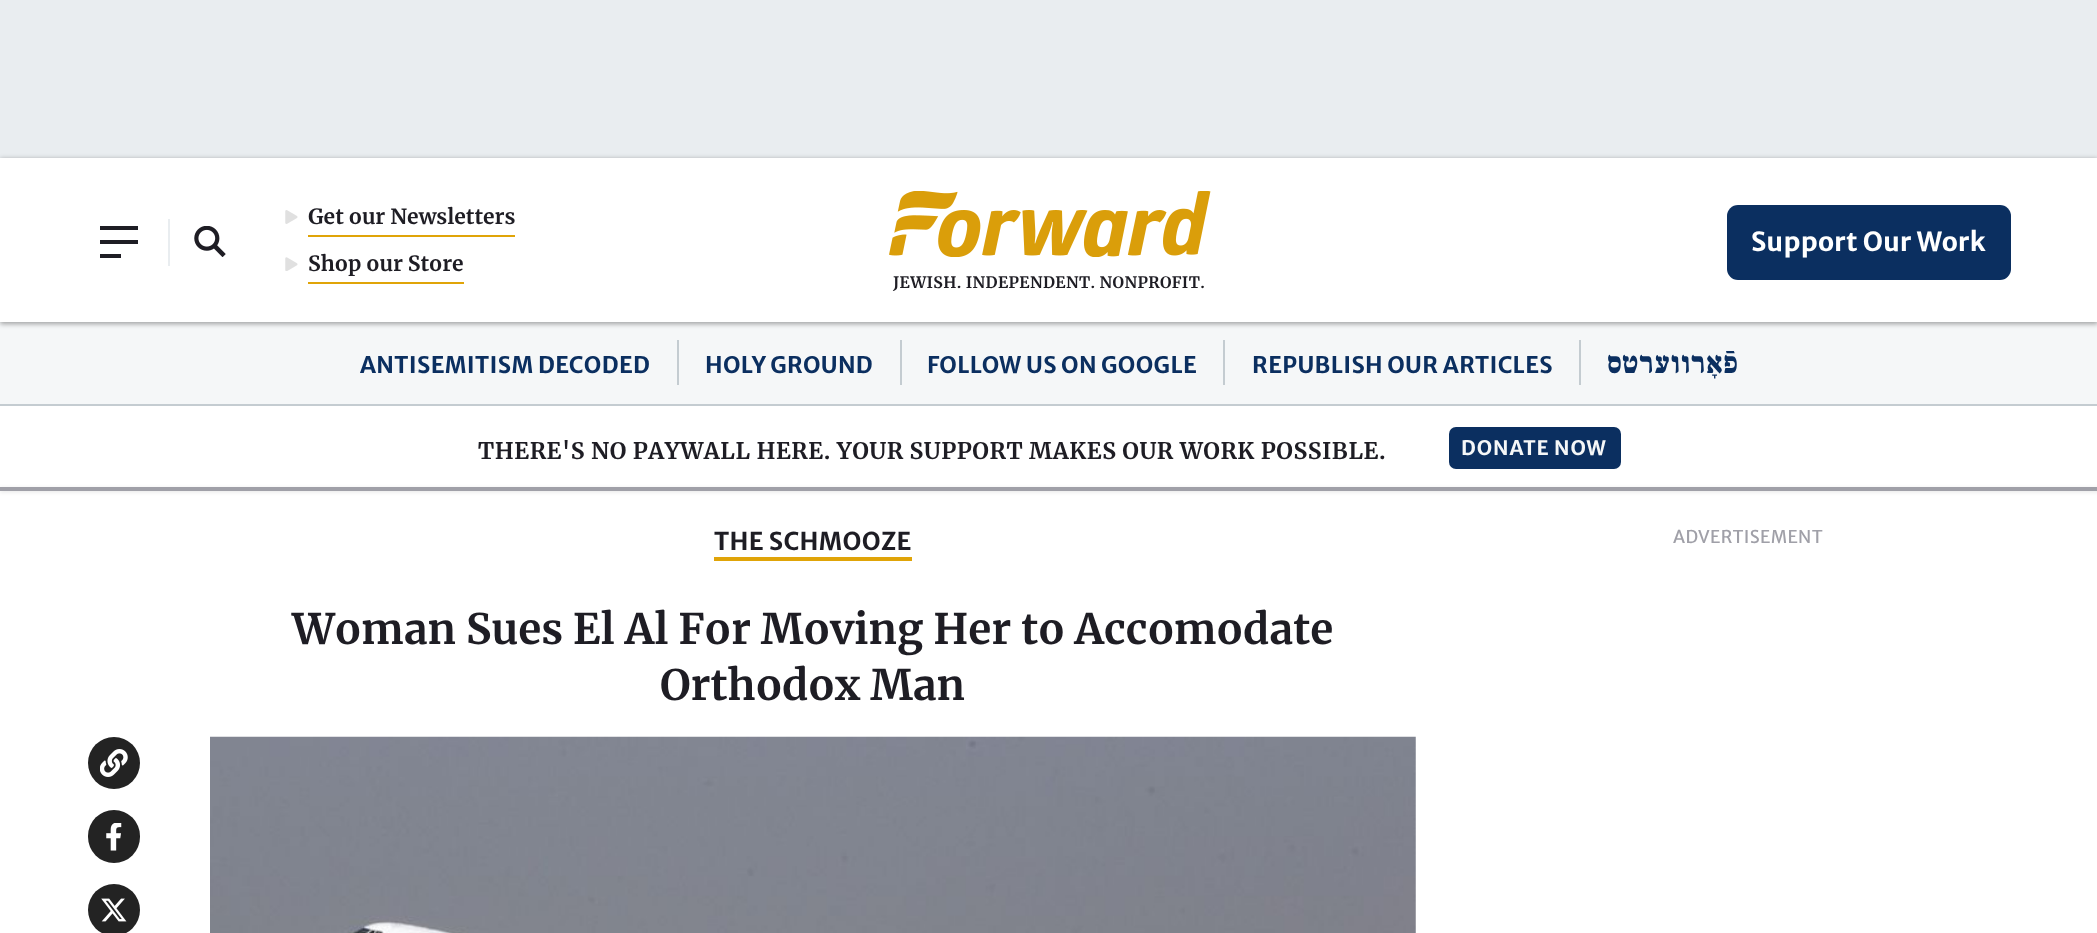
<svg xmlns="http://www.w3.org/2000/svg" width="2097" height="933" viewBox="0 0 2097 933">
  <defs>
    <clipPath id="clip1"><path d="M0 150H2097V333H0ZM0 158H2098V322H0Z" clip-rule="evenodd"/></clipPath>
  </defs>
  <rect width="100%" height="100%" fill="#fff"/>
  <path d="M0 0h2097v158H0z" fill="#e9edf0"/>
  <path d="M0 322h2097v82H0z" fill="#f5f7f8"/>
  <g clip-path="url(#clip1)">
    <path d="M0 159h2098v165H0z" fill="#00000059" filter="blur(2.5px)"/>
  </g>
  <path d="M100 226h38v4H100z" fill="#1e1d24"/>
  <path d="M168 219h2v47H168z" fill="#e9edf0"/>
  <path d="M100 240h38v4H100z" fill="#1e1d24"/>
  <path d="M100 254h21v4H100z" fill="#1e1d24"/>
  <image x="194" y="226" width="32" height="31" href="img/1.png"/>
  <path d="M308 235h207v2H308z" fill="#e0a408"/>
  <image x="285" y="210" width="13" height="14" href="img/2.png"/>
  <path d="M308 282h156v2H308z" fill="#e0a408"/>
  <image x="285" y="257" width="13" height="14" href="img/3.png"/>
  <rect x="1727" y="205" width="284" height="75" rx="11" fill="#0b2f60"/>
  <image x="889" y="191" width="322" height="66" href="img/4.png"/>
  <path d="M0 404h2097v2H0z" fill="#c4ccd1"/>
  <path d="M677 340h2v45H677z" fill="#c4ccd1"/>
  <path d="M900 340h2v45H900z" fill="#c4ccd1"/>
  <path d="M1223 340h2v45H1223z" fill="#c4ccd1"/>
  <path d="M1579 340h2v45H1579z" fill="#c4ccd1"/>
  <rect x="1449" y="427" width="172" height="42" rx="7" fill="#0b2f60"/>
  <path d="M0 488h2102v4H0z" fill="#0000001a" filter="blur(2px)"/>
  <path d="M0 487h2097v4H0z" fill="#a0a0a8"/>
  <path d="M714 557h198v4H714z" fill="#e0a408"/>
  <circle cx="114" cy="763" r="26" fill="#232323"/>
  <image x="100" y="749" width="28" height="28" href="img/5.png"/>
  <rect x="88" y="810" width="52" height="53" rx="26" fill="#232323"/>
  <image x="106" y="823" width="16" height="28" href="img/6.png"/>
  <circle cx="114" cy="910" r="26" fill="#232323"/>
  <image x="101" y="898" width="26" height="24" href="img/7.png"/>
  <image x="210" y="736" width="1206" height="197" href="img/8.png"/>
  <g font-family="Merriweather" font-size="21" font-weight="bold" fill="#1e1d24">
    <text x="308" y="224">Get our Newsletters</text>
    <text x="308" y="271">Shop our Store</text>
  </g>
  <text x="1751" y="251" font-family="Merriweather Sans" font-size="26.25" font-weight="bold" letter-spacing="0.25" fill="#fff">Support Our Work</text>
  <text x="893" y="288" font-family="Merriweather" font-size="15.75" font-weight="bold" letter-spacing="0.35" fill="#1e1d24">JEWISH. INDEPENDENT. NONPROFIT.</text>
  <g font-family="Merriweather Sans" font-size="22.75" font-weight="bold" letter-spacing="0.35" fill="#0b2f60">
    <text x="360" y="373">ANTISEMITISM DECODED</text>
    <text x="705" y="373">HOLY GROUND</text>
    <text x="927" y="373">FOLLOW US ON GOOGLE</text>
    <text x="1252" y="373">REPUBLISH OUR ARTICLES</text>
  </g>
  <text x="1739" y="373" font-family="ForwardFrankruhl" font-size="35" font-weight="bold" letter-spacing="0.35" direction="rtl" fill="#0b2f60">פֿאָרווערטס</text>
  <text x="478" y="459" font-family="Merriweather" font-size="22.75" font-weight="bold" letter-spacing="0.53" fill="#1e1d24">THERE'S NO PAYWALL HERE. YOUR SUPPORT MAKES OUR WORK POSSIBLE.</text>
  <text x="1461" y="455" font-family="Merriweather Sans" font-size="20" font-weight="bold" letter-spacing="0.9" fill="#f5f7f8">DONATE NOW</text>
  <text x="714" y="550" font-family="Merriweather Sans" font-size="24.5" font-weight="bold" letter-spacing="0.35" fill="#1e1d24">THE SCHMOOZE</text>
  <g font-family="Merriweather" font-size="42" font-weight="bold" fill="#1e1d24">
    <text x="292" y="644">Woman Sues El Al For Moving Her to Accomodate</text>
    <text x="660" y="700">Orthodox Man</text>
  </g>
  <text x="1673" y="543" font-family="Merriweather Sans" font-size="17.5" letter-spacing="0.35" fill="#a0a0a8">ADVERTISEMENT</text>
</svg>
